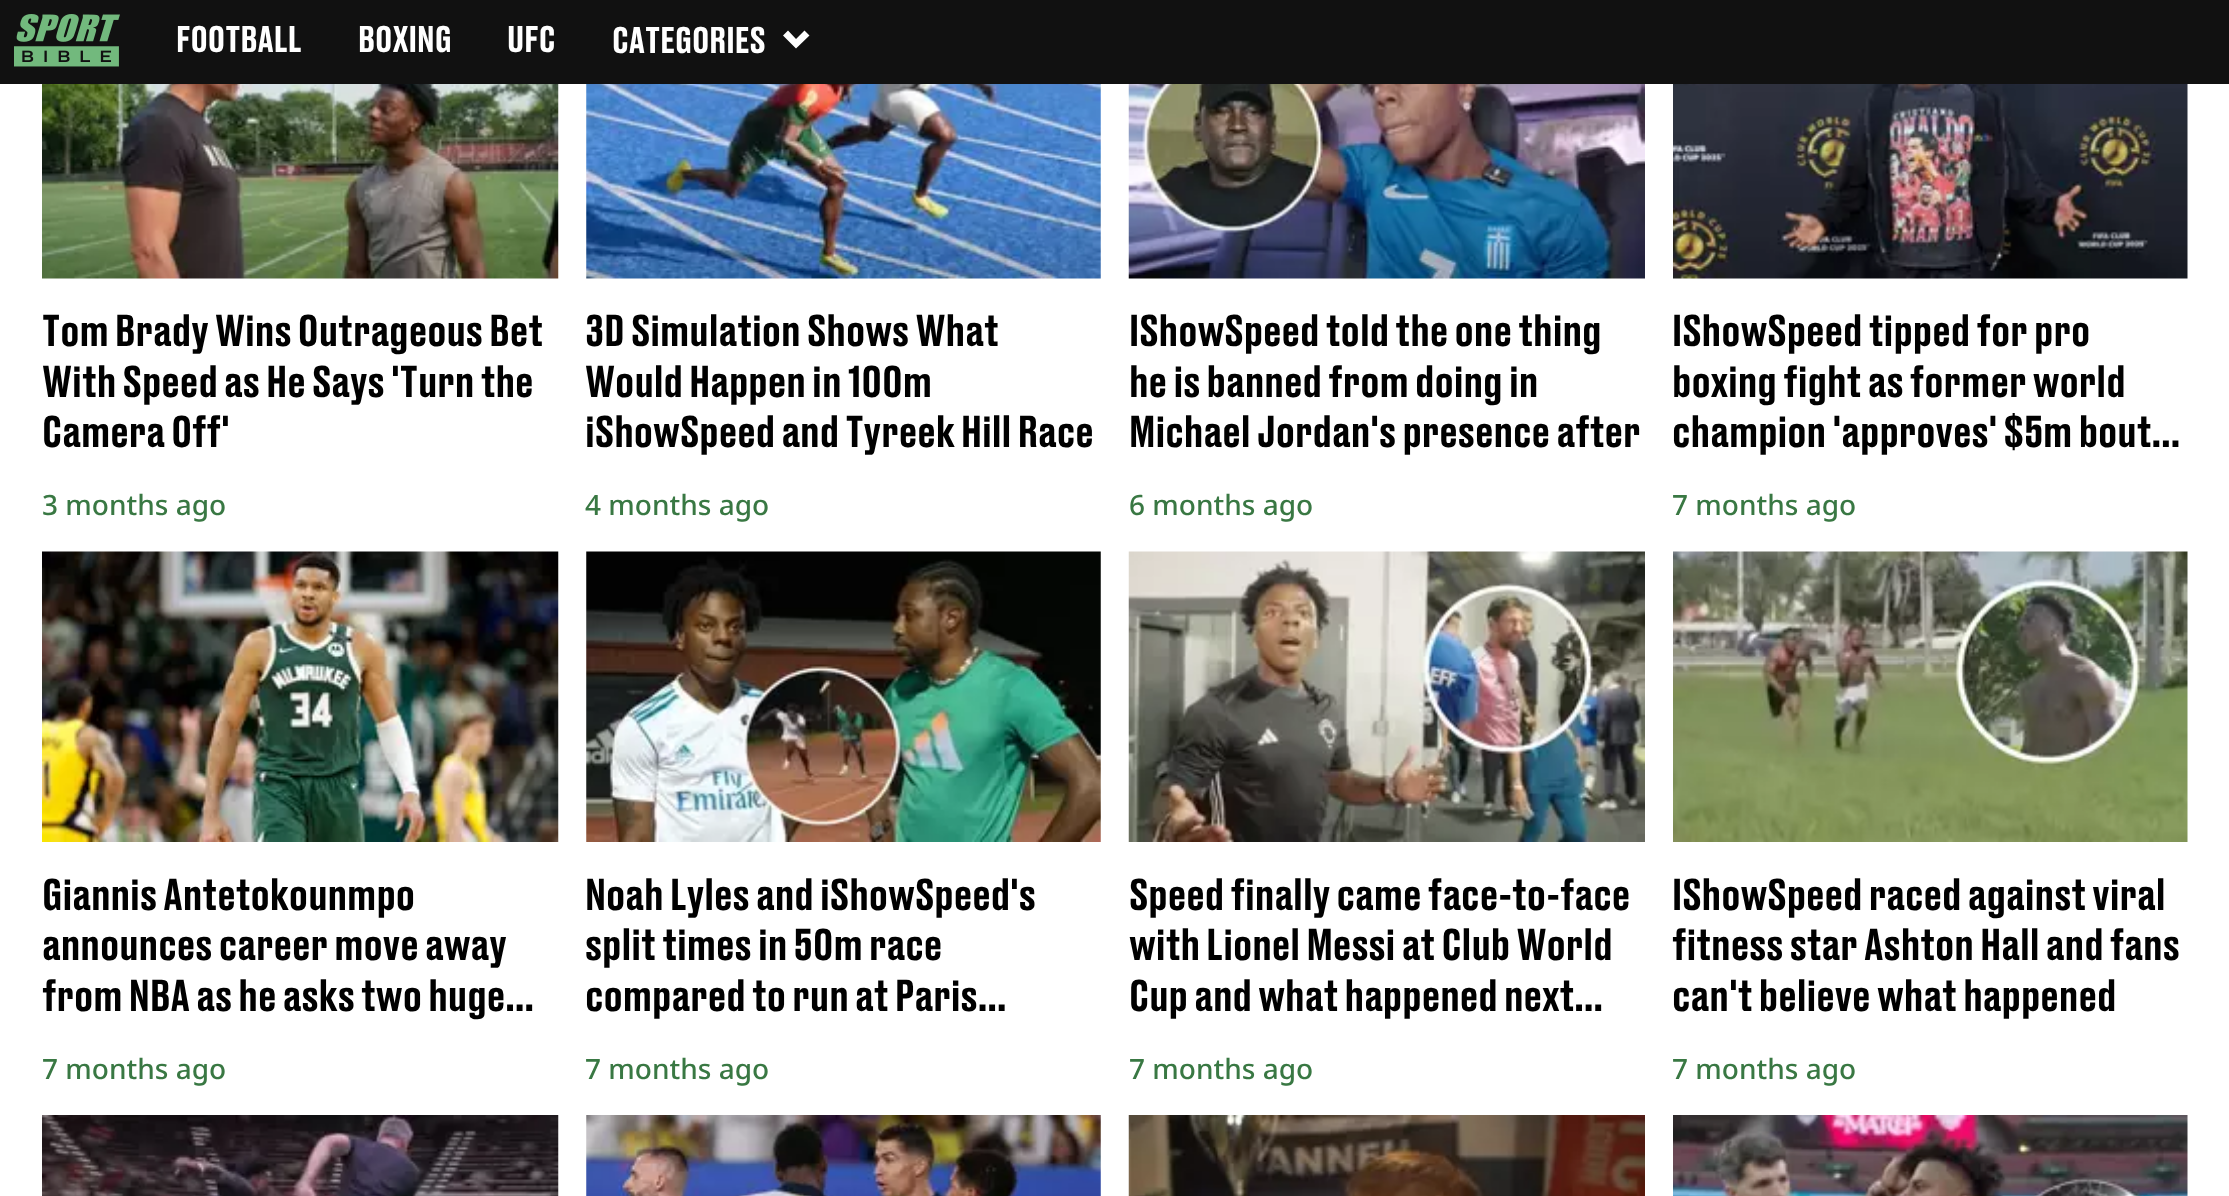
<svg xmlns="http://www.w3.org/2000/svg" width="2229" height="1196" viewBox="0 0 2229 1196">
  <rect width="100%" height="100%" fill="#fff"/>
  <path d="M0 0h2229v84H0z" fill="#111"/>
  <image x="14" y="14" width="106" height="53" href="img/1.png"/>
  <path d="M796 39L804.5 30.5L809.5 35.5L796 48.5L783 35.5L788 30.5Z" fill="#fff"/>
  <image x="42" y="84" width="517" height="195" href="img/2.png"/>
  <image x="586" y="84" width="515" height="195" href="img/3.png"/>
  <image x="1128" y="84" width="517" height="195" href="img/4.png"/>
  <image x="1673" y="84" width="515" height="195" href="img/5.png"/>
  <image x="42" y="551" width="517" height="291" href="img/6.png"/>
  <image x="586" y="551" width="515" height="291" href="img/7.png"/>
  <image x="1128" y="551" width="517" height="291" href="img/8.png"/>
  <image x="1673" y="551" width="515" height="291" href="img/9.png"/>
  <image x="42" y="1115" width="517" height="81" href="img/10.png"/>
  <image x="586" y="1115" width="515" height="81" href="img/11.png"/>
  <image x="1128" y="1115" width="517" height="81" href="img/12.png"/>
  <image x="1673" y="1115" width="515" height="81" href="img/13.png"/>
  <g font-family="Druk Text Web" font-size="35" font-weight="500" fill="#fff">
    <text x="176" y="52">FOOTBALL</text>
    <text x="358" y="52">BOXING</text>
    <text x="507" y="52">UFC</text>
    <text x="612" y="53">CATEGORIES</text>
  </g>
  <g font-family="Druk Text Web" font-size="42" font-weight="500" fill="#000">
    <text x="42" y="346">Tom Brady Wins Outrageous Bet</text>
    <text x="42" y="397">With Speed as He Says 'Turn the</text>
    <text x="42" y="447">Camera Off'</text>
  </g>
  <text x="42" y="515" font-family="Noto Sans" font-size="28" font-weight="500" fill="#397843">3 months ago</text>
  <g font-family="Druk Text Web" font-size="42" font-weight="500" fill="#000">
    <text x="585" y="346">3D Simulation Shows What</text>
    <text x="585" y="397">Would Happen in 100m</text>
    <text x="585" y="447">iShowSpeed and Tyreek Hill Race</text>
  </g>
  <text x="585" y="515" font-family="Noto Sans" font-size="28" font-weight="500" fill="#397843">4 months ago</text>
  <g font-family="Druk Text Web" font-size="42" font-weight="500" fill="#000">
    <text x="1129" y="346">IShowSpeed told the one thing</text>
    <text x="1129" y="397">he is banned from doing in</text>
    <text x="1129" y="447">Michael Jordan's presence after</text>
  </g>
  <text x="1129" y="515" font-family="Noto Sans" font-size="28" font-weight="500" fill="#397843">6 months ago</text>
  <g font-family="Druk Text Web" font-size="42" font-weight="500" fill="#000">
    <text x="1672" y="346">IShowSpeed tipped for pro</text>
    <text x="1672" y="397">boxing fight as former world</text>
    <text x="1672" y="447">champion 'approves' $5m bout…</text>
  </g>
  <text x="1672" y="515" font-family="Noto Sans" font-size="28" font-weight="500" fill="#397843">7 months ago</text>
  <g font-family="Druk Text Web" font-size="42" font-weight="500" fill="#000">
    <text x="42" y="910">Giannis Antetokounmpo</text>
    <text x="42" y="960">announces career move away</text>
    <text x="42" y="1011">from NBA as he asks two huge…</text>
  </g>
  <text x="42" y="1079" font-family="Noto Sans" font-size="28" font-weight="500" fill="#397843">7 months ago</text>
  <g font-family="Druk Text Web" font-size="42" font-weight="500" fill="#000">
    <text x="585" y="910">Noah Lyles and iShowSpeed's</text>
    <text x="585" y="960">split times in 50m race</text>
    <text x="585" y="1011">compared to run at Paris…</text>
  </g>
  <text x="585" y="1079" font-family="Noto Sans" font-size="28" font-weight="500" fill="#397843">7 months ago</text>
  <g font-family="Druk Text Web" font-size="42" font-weight="500" fill="#000">
    <text x="1129" y="910">Speed finally came face-to-face</text>
    <text x="1129" y="960">with Lionel Messi at Club World</text>
    <text x="1129" y="1011">Cup and what happened next…</text>
  </g>
  <text x="1129" y="1079" font-family="Noto Sans" font-size="28" font-weight="500" fill="#397843">7 months ago</text>
  <g font-family="Druk Text Web" font-size="42" font-weight="500" fill="#000">
    <text x="1672" y="910">IShowSpeed raced against viral</text>
    <text x="1672" y="960">fitness star Ashton Hall and fans</text>
    <text x="1672" y="1011">can't believe what happened</text>
  </g>
  <text x="1672" y="1079" font-family="Noto Sans" font-size="28" font-weight="500" fill="#397843">7 months ago</text>
</svg>
